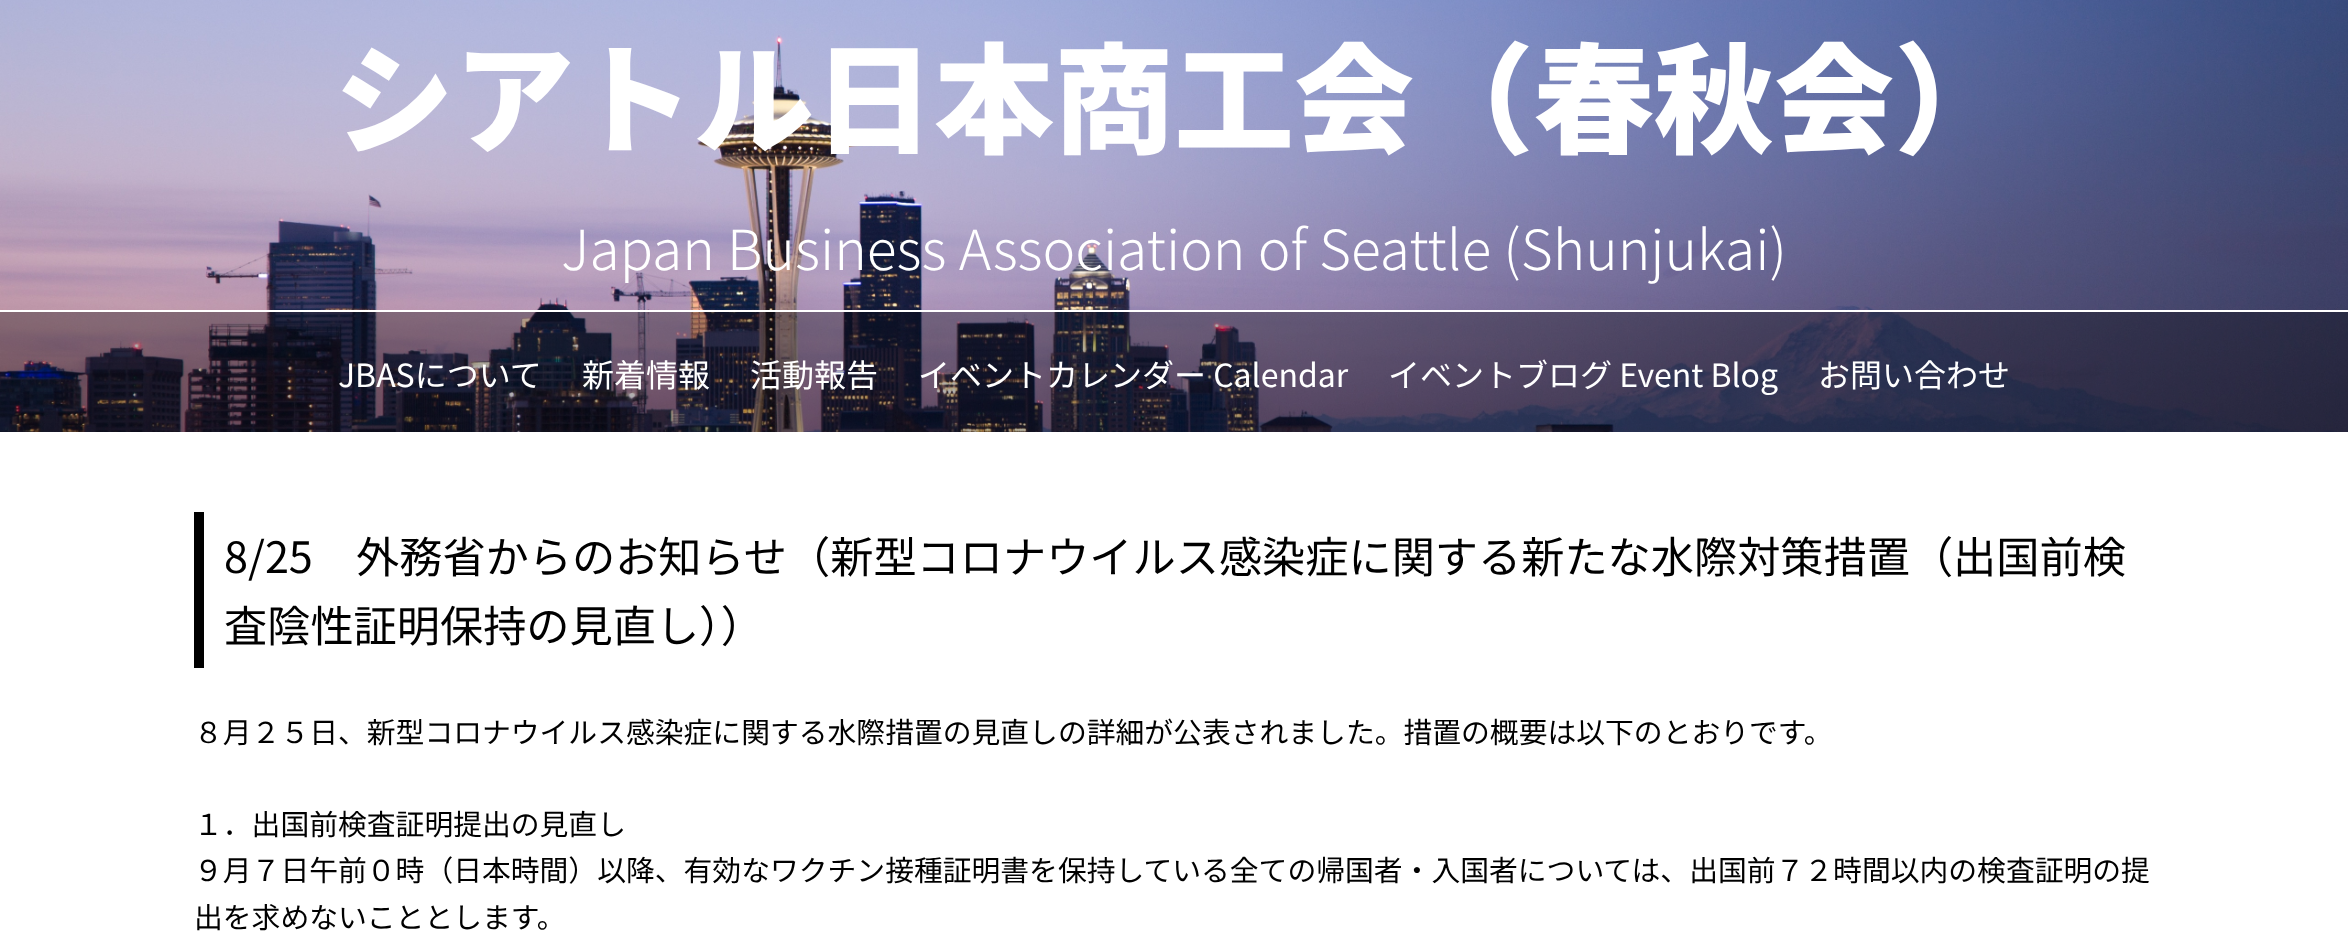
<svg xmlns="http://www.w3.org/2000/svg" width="2348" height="950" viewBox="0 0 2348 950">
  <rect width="100%" height="100%" fill="#fff"/>
  <image x="0" y="0" width="2348" height="432" href="img/1.png"/>
  <path d="M0 312h2348v120H0z" fill="#0000004d"/>
  <path d="M0 310h2348v2H0z" fill="#fff"/>
  <path d="M194 512h10v156H194z" fill="#000"/>
  <text x="334" y="144" font-family="Noto Sans JP" font-size="120" font-weight="900" fill="#fff">シアトル日本商工会（春秋会）</text>
  <text x="561" y="270" font-family="Noto Sans JP" font-size="55.2" font-weight="300" fill="#fff">Japan Business Association of Seattle (Shunjukai)</text>
  <g font-family="Noto Sans JP" font-size="32" fill="#fff">
    <text x="338" y="387">JBASについて</text>
    <text x="582" y="387">新着情報</text>
    <text x="750" y="387">活動報告</text>
    <text x="918" y="387">イベントカレンダー Calendar</text>
    <text x="1388" y="387">イベントブログ Event Blog</text>
    <text x="1818" y="387">お問い合わせ</text>
  </g>
  <g font-family="Noto Sans JP" font-size="43.2" fill="#000">
    <text x="224" y="573">8/25　外務省からのお知らせ（新型コロナウイルス感染症に関する新たな水際対策措置（出国前検</text>
    <text x="224" y="642">査陰性証明保持の見直し））</text>
  </g>
  <g font-family="Noto Sans JP" font-size="28.8" fill="#000">
    <text x="194" y="743">８月２５日、新型コロナウイルス感染症に関する水際措置の見直しの詳細が公表されました。措置の概要は以下のとおりです。</text>
    <text x="194" y="835">１．出国前検査証明提出の見直し</text>
    <text x="194" y="881">９月７日午前０時（日本時間）以降、有効なワクチン接種証明書を保持している全ての帰国者・入国者については、出国前７２時間以内の検査証明の提</text>
    <text x="194" y="928">出を求めないこととします。</text>
  </g>
</svg>
